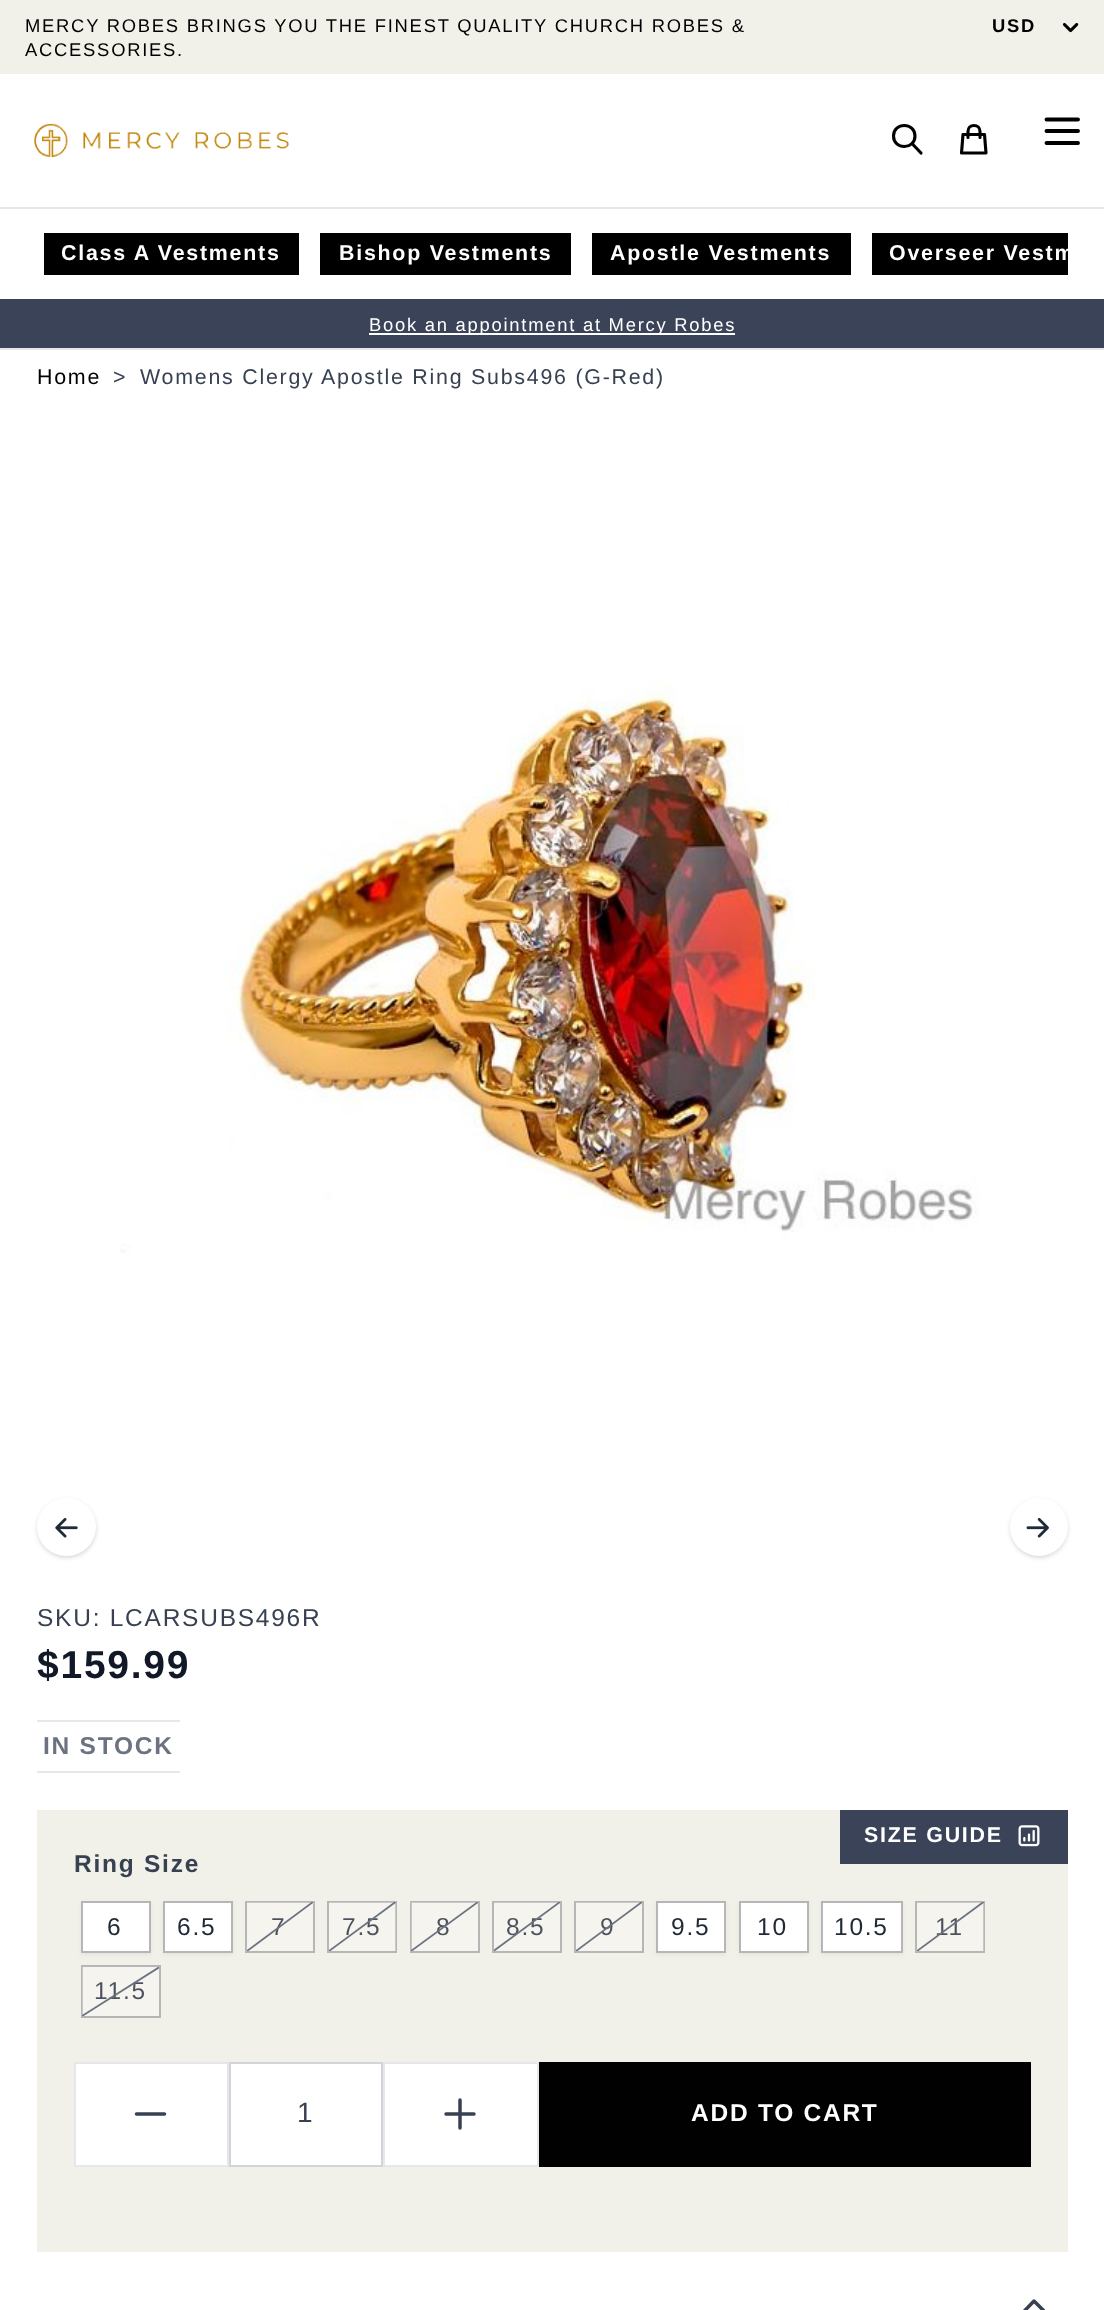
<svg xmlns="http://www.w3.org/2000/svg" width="1104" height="2310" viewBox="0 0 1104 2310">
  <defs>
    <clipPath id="clip1"><path d="M37 233h1031v42H37z"/></clipPath>
    <clipPath id="clip2"><path d="M247 1902h66v49H247z"/></clipPath>
    <clipPath id="clip3"><path d="M329 1902h67v49H329z"/></clipPath>
    <clipPath id="clip4"><path d="M411 1902h67v49H411z"/></clipPath>
    <clipPath id="clip5"><path d="M494 1902h66v49H494z"/></clipPath>
    <clipPath id="clip6"><path d="M576 1902h66v49H576z"/></clipPath>
    <clipPath id="clip7"><path d="M917 1902h67v49H917z"/></clipPath>
    <clipPath id="clip8"><path d="M82 1967h77v49H82z"/></clipPath>
  </defs>
  <rect width="100%" height="100%" fill="#fff"/>
  <path d="M0 348h1104v2H0z" fill="#e5e7eb"/>
  <path d="M0 0h1104v74H0z" fill="#f2f1e9"/>
  <image x="1062" y="23" width="17" height="10" href="img/1.png"/>
  <image x="34" y="123" width="255" height="34" href="img/2.png"/>
  <path d="M921 153L912 143.5M915 136C915 150 893.5 150 893.5 136C893.5 122 915 122 915 136Z" fill="none" stroke="#000" stroke-width="3.1" stroke-linecap="round" stroke-linejoin="round"/>
  <path d="M980 137.5V131.5C980 128 977.5 125.5 974 125.5C970.5 125.5 968 128 968 131.5V137.5M963 134.5H984.5L986 153H961.5Z" fill="none" stroke="#000" stroke-width="3.1" stroke-linecap="round" stroke-linejoin="round"/>
  <path d="M1046.5 119.5H1078M1046.5 131H1078M1046.5 143H1078" fill="none" stroke="#000" stroke-width="3.9" stroke-linecap="round" stroke-linejoin="round"/>
  <path d="M0 207h1104v2H0z" fill="#e5e7eb"/>
  <path d="M44 233h255v42H44z" fill="#000"/>
  <path d="M320 233h251v42H320z" fill="#000"/>
  <path d="M592 233h259v42H592z" fill="#000"/>
  <path d="M872 233h196v42H872z" fill="#000"/>
  <path d="M0 299h1104v49H0z" fill="#3b4359"/>
  <path d="M369 333h366v2H369z" fill="#fff"/>
  <image x="120" y="682" width="859" height="571" href="img/3.png"/>
  <rect x="39" y="1502" width="56" height="54" rx="27" fill="#0000001a" filter="blur(2px)"/>
  <rect x="37" y="1500" width="59" height="58" rx="29" fill="#0000001a" filter="blur(2.5px)"/>
  <rect x="37" y="1498" width="59" height="58" rx="29" fill="#fff"/>
  <image x="55" y="1518" width="23" height="20" href="img/4.png"/>
  <rect x="1012" y="1502" width="54" height="54" rx="27" fill="#0000001a" filter="blur(2px)"/>
  <rect x="1010" y="1500" width="58" height="58" rx="29" fill="#0000001a" filter="blur(2.5px)"/>
  <circle cx="1039" cy="1527" r="29" fill="#fff"/>
  <image x="1026" y="1518" width="23" height="20" href="img/5.png"/>
  <path d="M37 1720h143v2H37z" fill="#e5e7eb"/>
  <path d="M37 1771h143v2H37z" fill="#e5e7eb"/>
  <path d="M37 1810h1031v442H37z" fill="#f2f1e9"/>
  <path d="M840 1810h228v54H840z" fill="#3b4359"/>
  <image x="1018" y="1825" width="22" height="22" href="img/6.png"/>
  <path d="M81 1902h70v53H81z" fill="#0000000d" filter="blur(2px)"/>
  <path d="M82 1902h68v50H82z" fill="#fff" stroke="#b6b6b6" stroke-width="2"/>
  <path d="M163 1902h70v53H163z" fill="#0000000d" filter="blur(2px)"/>
  <path d="M164 1902h68v50H164z" fill="#fff" stroke="#b6b6b6" stroke-width="2"/>
  <path d="M246 1902h68v50H246z" fill="none" stroke="#b6b6b6" stroke-width="2"/>
  <path d="M328 1902h68v50H328z" fill="none" stroke="#b6b6b6" stroke-width="2"/>
  <path d="M411 1902h68v50H411z" fill="none" stroke="#b6b6b6" stroke-width="2"/>
  <path d="M493 1902h68v50H493z" fill="none" stroke="#b6b6b6" stroke-width="2"/>
  <path d="M575 1902h68v50H575z" fill="none" stroke="#b6b6b6" stroke-width="2"/>
  <path d="M656 1902h70v53H656z" fill="#0000000d" filter="blur(2px)"/>
  <path d="M657 1902h68v50H657z" fill="#fff" stroke="#b6b6b6" stroke-width="2"/>
  <path d="M739 1902h70v53H739z" fill="#0000000d" filter="blur(2px)"/>
  <path d="M740 1902h68v50H740z" fill="#fff" stroke="#b6b6b6" stroke-width="2"/>
  <path d="M821 1902h82v53H821z" fill="#0000000d" filter="blur(2px)"/>
  <path d="M822 1902h80v50H822z" fill="#fff" stroke="#b6b6b6" stroke-width="2"/>
  <path d="M916 1902h68v50H916z" fill="none" stroke="#b6b6b6" stroke-width="2"/>
  <path d="M82 1966h78v51H82z" fill="none" stroke="#b6b6b6" stroke-width="2"/>
  <path d="M75 2063h153v103H75z" fill="#fff" stroke="#e5e7eb" stroke-width="2"/>
  <path d="M164.5 2114H136.5" fill="none" stroke="#374151" stroke-width="3.5" stroke-linecap="round" stroke-linejoin="round"/>
  <path d="M230 2063h152v103H230z" fill="#fff" stroke="#d1d5db" stroke-width="2"/>
  <path d="M384 2063h154v103H384z" fill="#fff" stroke="#e5e7eb" stroke-width="2"/>
  <path d="M460 2100V2128M474 2114H446" fill="none" stroke="#374151" stroke-width="3.5" stroke-linecap="round" stroke-linejoin="round"/>
  <path d="M539 2062h492v105H539z" fill="#010101"/>
  <path d="M1022 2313.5L1034 2301L1046.5 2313.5" fill="none" stroke="#374151" stroke-width="3.5" stroke-linecap="round" stroke-linejoin="round"/>
  <g font-family="Liberation Sans" font-size="18.4" letter-spacing="1.75" fill="#000">
    <text x="25" y="32">MERCY ROBES BRINGS YOU THE FINEST QUALITY CHURCH ROBES &amp;</text>
    <text x="25" y="56">ACCESSORIES.</text>
  </g>
  <text x="992" y="32" font-family="Liberation Sans" font-size="18.4" font-weight="bold" letter-spacing="1.75" fill="#000">USD</text>
  <g font-family="Liberation Sans" font-size="21.4" font-weight="bold" letter-spacing="1.75" fill="#fff">
    <text x="61" y="260">Class A Vestments</text>
    <text x="339" y="260">Bishop Vestments</text>
    <text x="610" y="260">Apostle Vestments</text>
  </g>
  <g clip-path="url(#clip1)">
    <text x="889" y="260" font-family="Liberation Sans" font-size="21.4" font-weight="bold" letter-spacing="1.75" fill="#fff">Overseer Vestm</text>
  </g>
  <text x="369" y="331" font-family="Liberation Sans" font-size="18.4" letter-spacing="1.75" fill="#fff">Book an appointment at Mercy Robes</text>
  <text x="37" y="384" font-family="Liberation Sans" font-size="21.4" letter-spacing="1.75" fill="#000">Home</text>
  <g font-family="Liberation Sans" font-size="21.4" letter-spacing="1.75" fill="#374151">
    <text x="113" y="384">&gt;</text>
    <text x="140" y="384">Womens Clergy Apostle Ring Subs496 (G-Red)</text>
  </g>
  <text x="37" y="1626" font-family="Liberation Sans" font-size="24.5" letter-spacing="1.75" fill="#374151">SKU: LCARSUBS496R</text>
  <text x="37" y="1678" font-family="Liberation Sans" font-size="39" font-weight="bold" letter-spacing="1.75" fill="#111827">$159.99</text>
  <text x="43" y="1754" font-family="Liberation Sans" font-size="24.5" font-weight="bold" letter-spacing="1.75" fill="#6b7280">IN STOCK</text>
  <text x="864" y="1842" font-family="Liberation Sans" font-size="21.4" font-weight="bold" letter-spacing="1.75" fill="#fff">SIZE GUIDE</text>
  <text x="74" y="1872" font-family="Liberation Sans" font-size="24.5" font-weight="bold" letter-spacing="1.75" fill="#374151">Ring Size</text>
  <g font-family="Liberation Sans" font-size="24.5" letter-spacing="1.75" fill="#1f2937">
    <text x="107" y="1935">6</text>
    <text x="177" y="1935">6.5</text>
  </g>
  <text x="271" y="1935" font-family="Liberation Sans" font-size="24.5" letter-spacing="1.75" fill="#111827">7</text>
  <path d="M247 1902h66v49H247z" fill="#ffffff40"/>
  <g clip-path="url(#clip2)">
    <path d="M247 1951L313 1902" fill="none" stroke="#6b7280" stroke-width="1.8"/>
  </g>
  <text x="342" y="1935" font-family="Liberation Sans" font-size="24.5" letter-spacing="1.75" fill="#111827">7.5</text>
  <path d="M329 1902h67v49H329z" fill="#ffffff40"/>
  <g clip-path="url(#clip3)">
    <path d="M329 1951L395.5 1902" fill="none" stroke="#6b7280" stroke-width="1.8"/>
  </g>
  <text x="436" y="1935" font-family="Liberation Sans" font-size="24.5" letter-spacing="1.75" fill="#111827">8</text>
  <path d="M411 1902h67v49H411z" fill="#ffffff40"/>
  <g clip-path="url(#clip4)">
    <path d="M411 1951L478 1902" fill="none" stroke="#6b7280" stroke-width="1.8"/>
  </g>
  <text x="506" y="1935" font-family="Liberation Sans" font-size="24.5" letter-spacing="1.75" fill="#111827">8.5</text>
  <path d="M494 1902h66v49H494z" fill="#ffffff40"/>
  <g clip-path="url(#clip5)">
    <path d="M493.5 1951L560 1902" fill="none" stroke="#6b7280" stroke-width="1.8"/>
  </g>
  <text x="600" y="1935" font-family="Liberation Sans" font-size="24.5" letter-spacing="1.75" fill="#111827">9</text>
  <path d="M576 1902h66v49H576z" fill="#ffffff40"/>
  <g clip-path="url(#clip6)">
    <path d="M576 1951L642 1902" fill="none" stroke="#6b7280" stroke-width="1.8"/>
  </g>
  <g font-family="Liberation Sans" font-size="24.5" letter-spacing="1.75" fill="#1f2937">
    <text x="671" y="1935">9.5</text>
    <text x="757" y="1935">10</text>
    <text x="834" y="1935">10.5</text>
  </g>
  <text x="935" y="1935" font-family="Liberation Sans" font-size="24.5" letter-spacing="1.75" fill="#111827">11</text>
  <path d="M917 1902h67v49H917z" fill="#ffffff40"/>
  <g clip-path="url(#clip7)">
    <path d="M917 1951L983.5 1902" fill="none" stroke="#6b7280" stroke-width="1.8"/>
  </g>
  <text x="94" y="1999" font-family="Liberation Sans" font-size="24.5" letter-spacing="1.75" fill="#111827">11.5</text>
  <path d="M82 1967h77v49H82z" fill="#ffffff40"/>
  <g clip-path="url(#clip8)">
    <path d="M82 2016L159.5 1967" fill="none" stroke="#6b7280" stroke-width="1.8"/>
  </g>
  <text x="297" y="2122" font-family="Liberation Sans" font-size="28" letter-spacing="1.75" fill="#374151">1</text>
  <text x="691" y="2121" font-family="Liberation Sans" font-size="24.5" font-weight="bold" letter-spacing="1.75" fill="#fff">ADD TO CART</text>
</svg>
